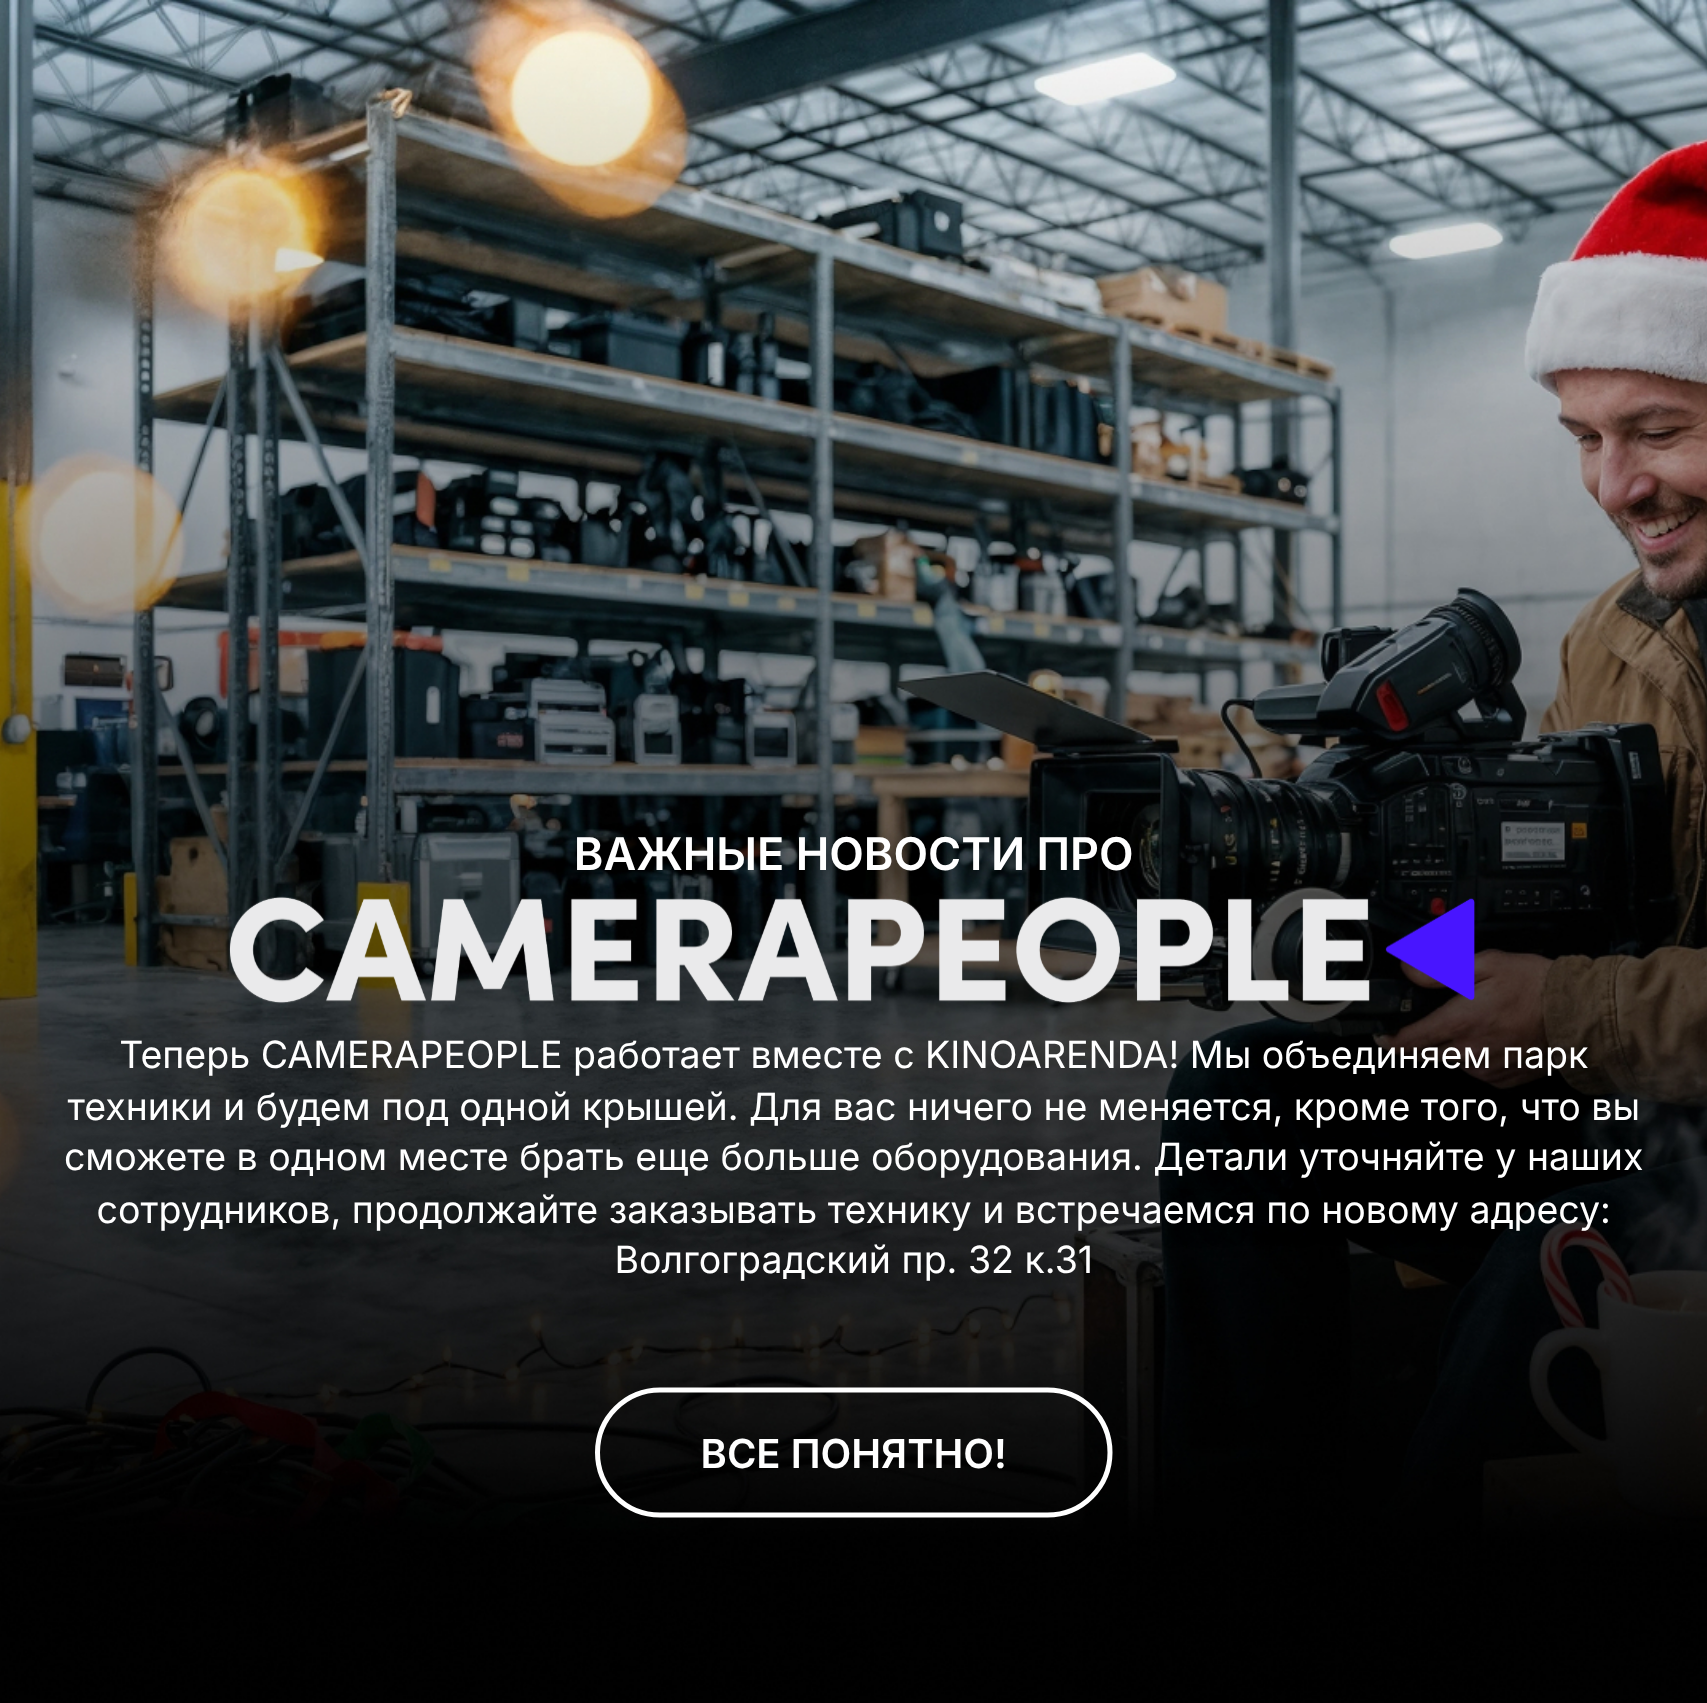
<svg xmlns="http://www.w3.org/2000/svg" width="1707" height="1703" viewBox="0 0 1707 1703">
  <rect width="100%" height="100%" fill="#fff"/>
  <image x="0" y="0" width="1707" height="1703" href="img/1.png"/>
</svg>
